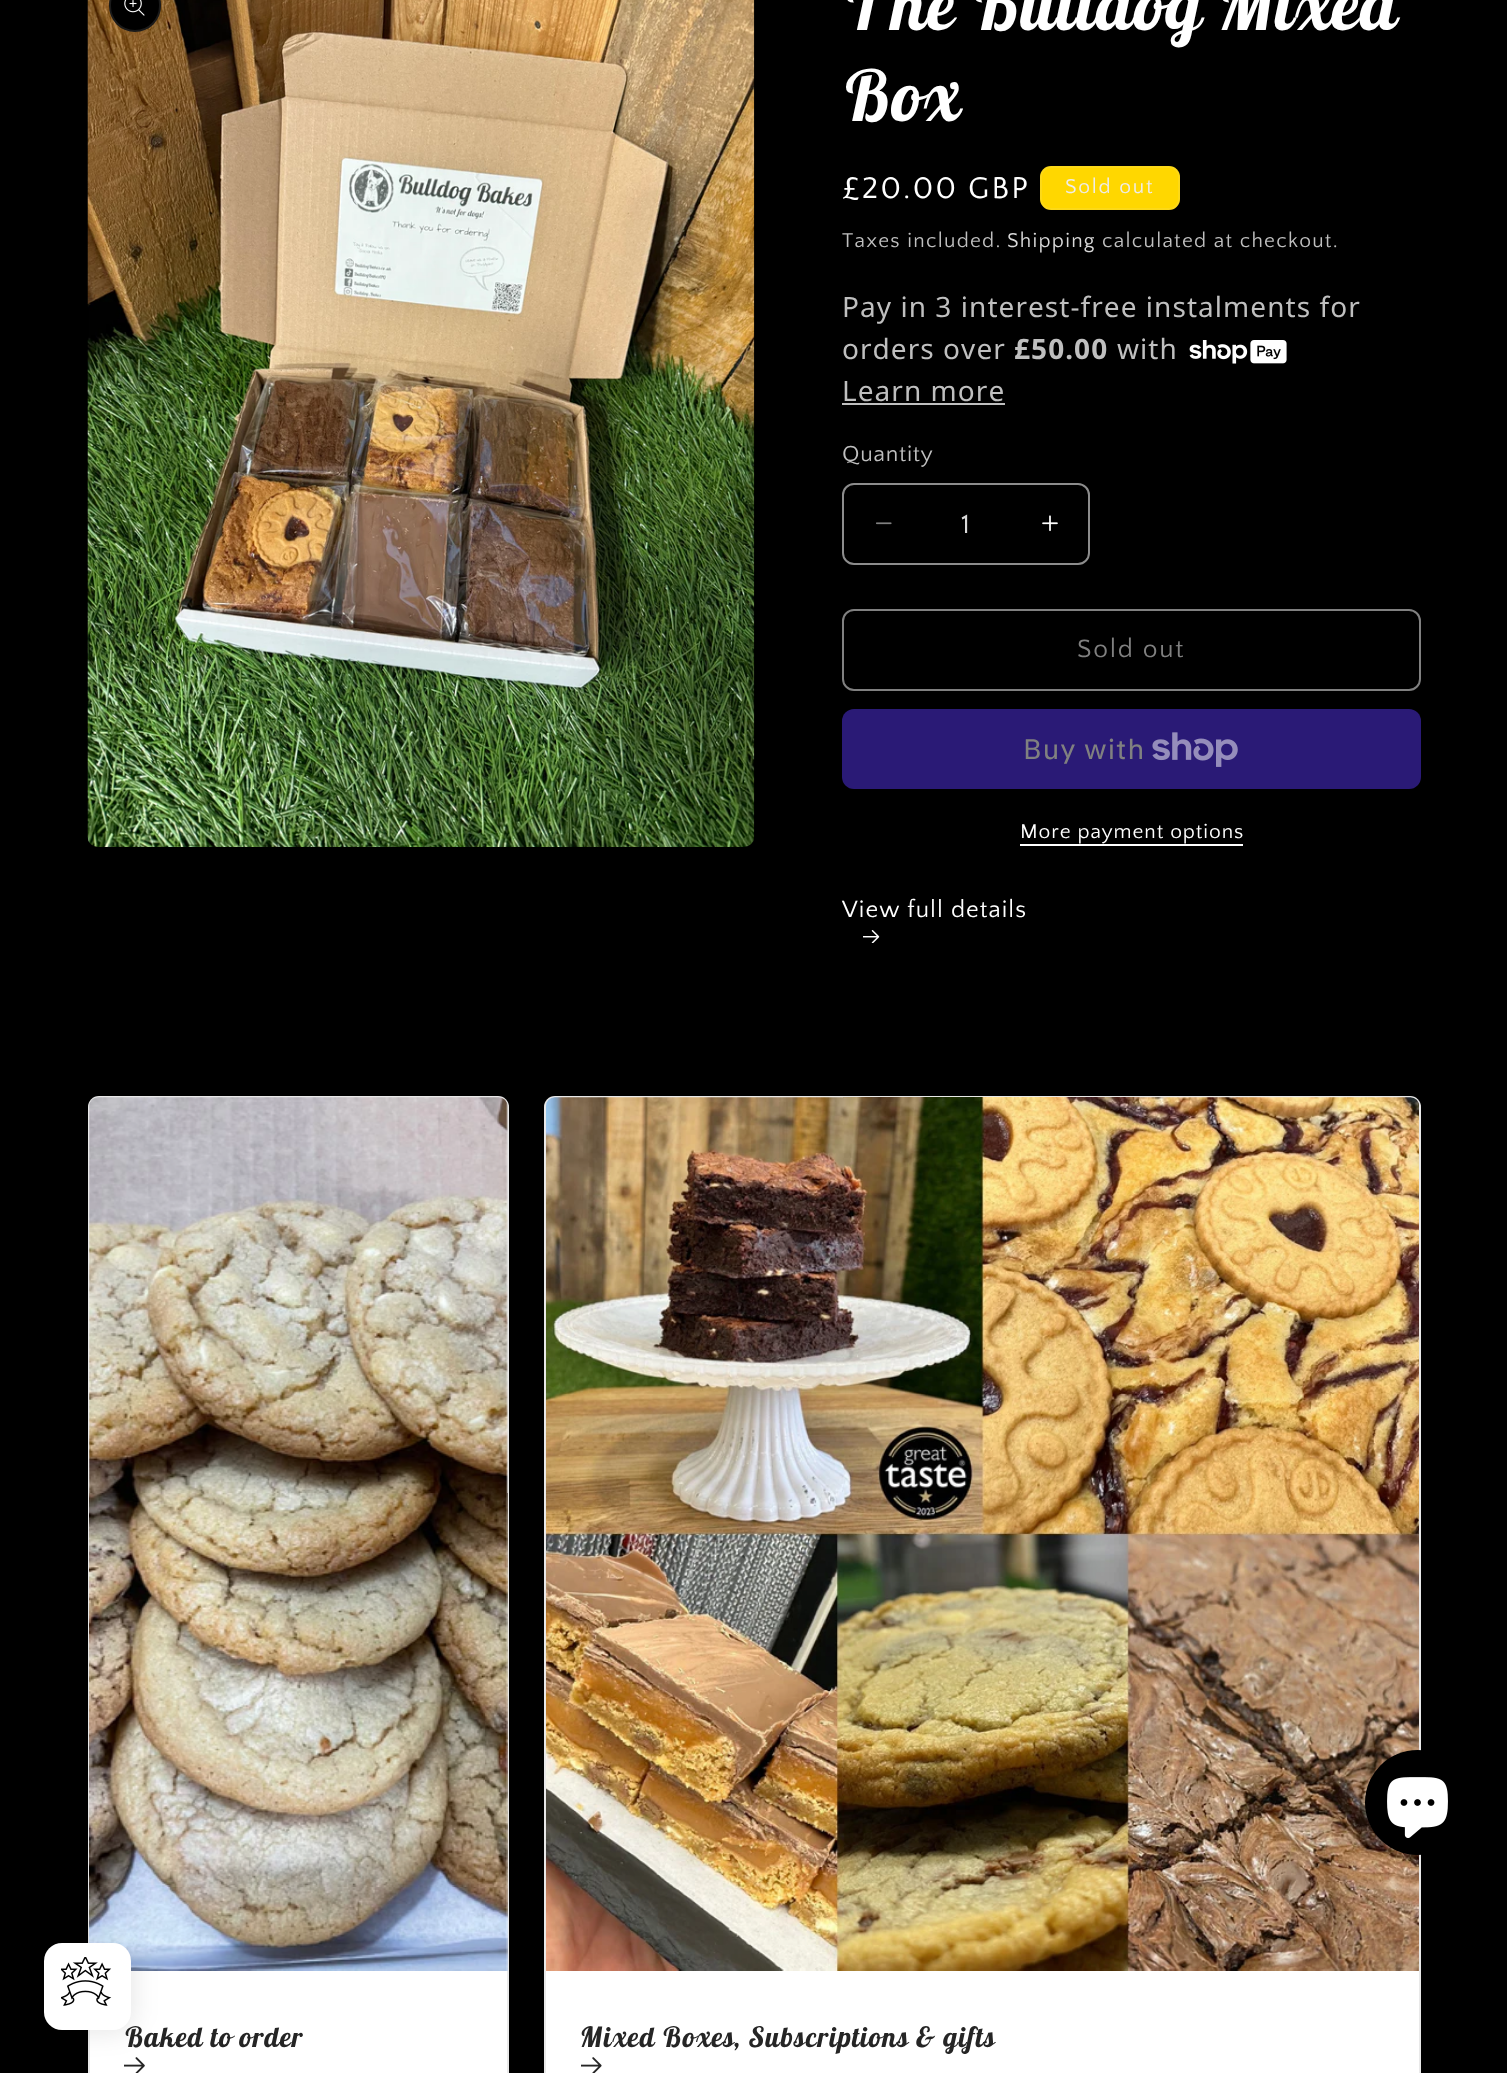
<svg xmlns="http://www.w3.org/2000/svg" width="1507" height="2073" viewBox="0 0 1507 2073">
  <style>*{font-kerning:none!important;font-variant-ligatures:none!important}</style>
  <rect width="100%" height="100%" fill="#000"/>
  <image x="87" y="0" width="668" height="847" href="img/2.png"/>
  <rect x="109" y="-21" width="52" height="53" rx="26" fill="#000"/>
  <rect x="110" y="-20" width="50" height="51" rx="25" fill="none" stroke="#ffffff1a" stroke-width="2"/>
  <image x="124" y="0" width="21" height="16" href="img/1.png"/>
  <rect x="1040" y="166" width="140" height="44" rx="11" fill="#ffd700"/>
  <rect x="1041" y="167" width="138" height="42" rx="10" fill="none" stroke="#efecec1a" stroke-width="2"/>
  <image x="1189" y="340" width="98" height="24" href="img/3.png"/>
  <path d="M842 403h163v2H842z" fill="#bfbfbf"/>
  <image x="876" y="522" width="16" height="3" href="img/4.png"/>
  <image x="1042" y="515" width="16" height="17" href="img/5.png"/>
  <rect x="843" y="484" width="246" height="80" rx="11" fill="none" stroke="#8c8c8c" stroke-width="2"/>
  <rect x="843" y="610" width="577" height="80" rx="11" fill="none" stroke="#808080" stroke-width="2"/>
  <rect x="842" y="709" width="579" height="80" rx="12" fill="#2a1a76"/>
  <image x="1152" y="732" width="86" height="35" href="img/6.png"/>
  <path d="M1020 844h223v2H1020z" fill="#fff"/>
  <image x="863" y="930" width="17" height="13" href="img/7.png"/>
  <rect x="88" y="1096" width="421" height="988" rx="11" fill="#fff"/>
  <rect x="89" y="1097" width="419" height="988" rx="10" fill="none" stroke="#2525251a" stroke-width="2"/>
  <image x="89" y="1097" width="419" height="874" href="img/8.png"/>
  <image x="124" y="2057" width="21" height="16" href="img/9.png"/>
  <rect x="544" y="1096" width="877" height="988" rx="11" fill="#fff"/>
  <rect x="545" y="1097" width="875" height="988" rx="10" fill="none" stroke="#2525251a" stroke-width="2"/>
  <image x="546" y="1097" width="873" height="874" href="img/10.png"/>
  <image x="581" y="2057" width="21" height="16" href="img/11.png"/>
  <circle cx="1417.5" cy="1802.5" r="52.5" fill="#000"/>
  <image x="1387" y="1777" width="61" height="61" href="img/12.png"/>
  <rect x="46" y="1944" width="87" height="88" rx="18" fill="#0000001a" filter="blur(13px)"/>
  <g font-family="Lobster Two" font-size="70" font-weight="bold" font-style="italic" letter-spacing="1.05" fill="#fff">
    <text x="842" y="30">The Bulldog Mixed</text>
    <text x="842" y="121">Box</text>
  </g>
  <text x="842" y="198" font-family="Quattrocento Sans" font-size="31.5" letter-spacing="2.25" fill="#fff">£20.00 GBP</text>
  <text x="1065" y="193" font-family="Quattrocento Sans" font-size="21" letter-spacing="1.75" fill="#efecec">Sold out</text>
  <text x="842" y="247" font-family="Quattrocento Sans" font-size="21" letter-spacing="1.25" fill="#bfbfbf">Taxes included.</text>
  <text x="1007" y="247" font-family="Quattrocento Sans" font-size="21" letter-spacing="1.25" fill="#d9d9d9">Shipping</text>
  <text x="1102" y="247" font-family="Quattrocento Sans" font-size="21" letter-spacing="1.25" fill="#bfbfbf">calculated at checkout.</text>
  <g font-family="Noto Sans" font-size="28" letter-spacing="1.05" fill="#bfbfbf">
    <text x="842" y="317">Pay in 3 interest-free instalments for</text>
    <text x="842" y="359">orders over</text>
  </g>
  <text x="1014" y="359" font-family="Noto Sans" font-size="28" font-weight="bold" letter-spacing="1.05" fill="#bfbfbf">£50.00</text>
  <g font-family="Noto Sans" font-size="28" letter-spacing="1.05" fill="#bfbfbf">
    <text x="1117" y="359">with</text>
    <text x="842" y="401">Learn more</text>
  </g>
  <text x="842" y="461" font-family="Quattrocento Sans" font-size="23" letter-spacing="0.75" fill="#bfbfbf">Quantity</text>
  <text x="961" y="533" font-family="Quattrocento Sans" font-size="28" letter-spacing="1.05" fill="#d9d9d9">1</text>
  <text x="1077" y="657" font-family="Quattrocento Sans" font-size="26.25" letter-spacing="1.75" fill="#808080">Sold out</text>
  <text x="1023" y="759" font-family="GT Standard" font-size="28" letter-spacing="1.05" fill="#808080">Buy with</text>
  <text x="1020" y="838" font-family="Quattrocento Sans" font-size="21" letter-spacing="0.9" fill="#fff">More payment options</text>
  <text x="842" y="917" font-family="Quattrocento Sans" font-size="24.5" letter-spacing="1.05" fill="#fff">View full details</text>
  <g font-family="Lobster Two" font-size="28" font-weight="bold" font-style="italic" letter-spacing="1.05" fill="#252525">
    <text x="124" y="2047">Baked to order</text>
    <text x="580" y="2047">Mixed Boxes, Subscriptions &amp; gifts</text>
  </g>
  <rect x="44" y="1943" width="87" height="87" rx="18" fill="#fff"/>
  <image x="61" y="1957" width="51" height="49" href="img/13.png"/>
</svg>
